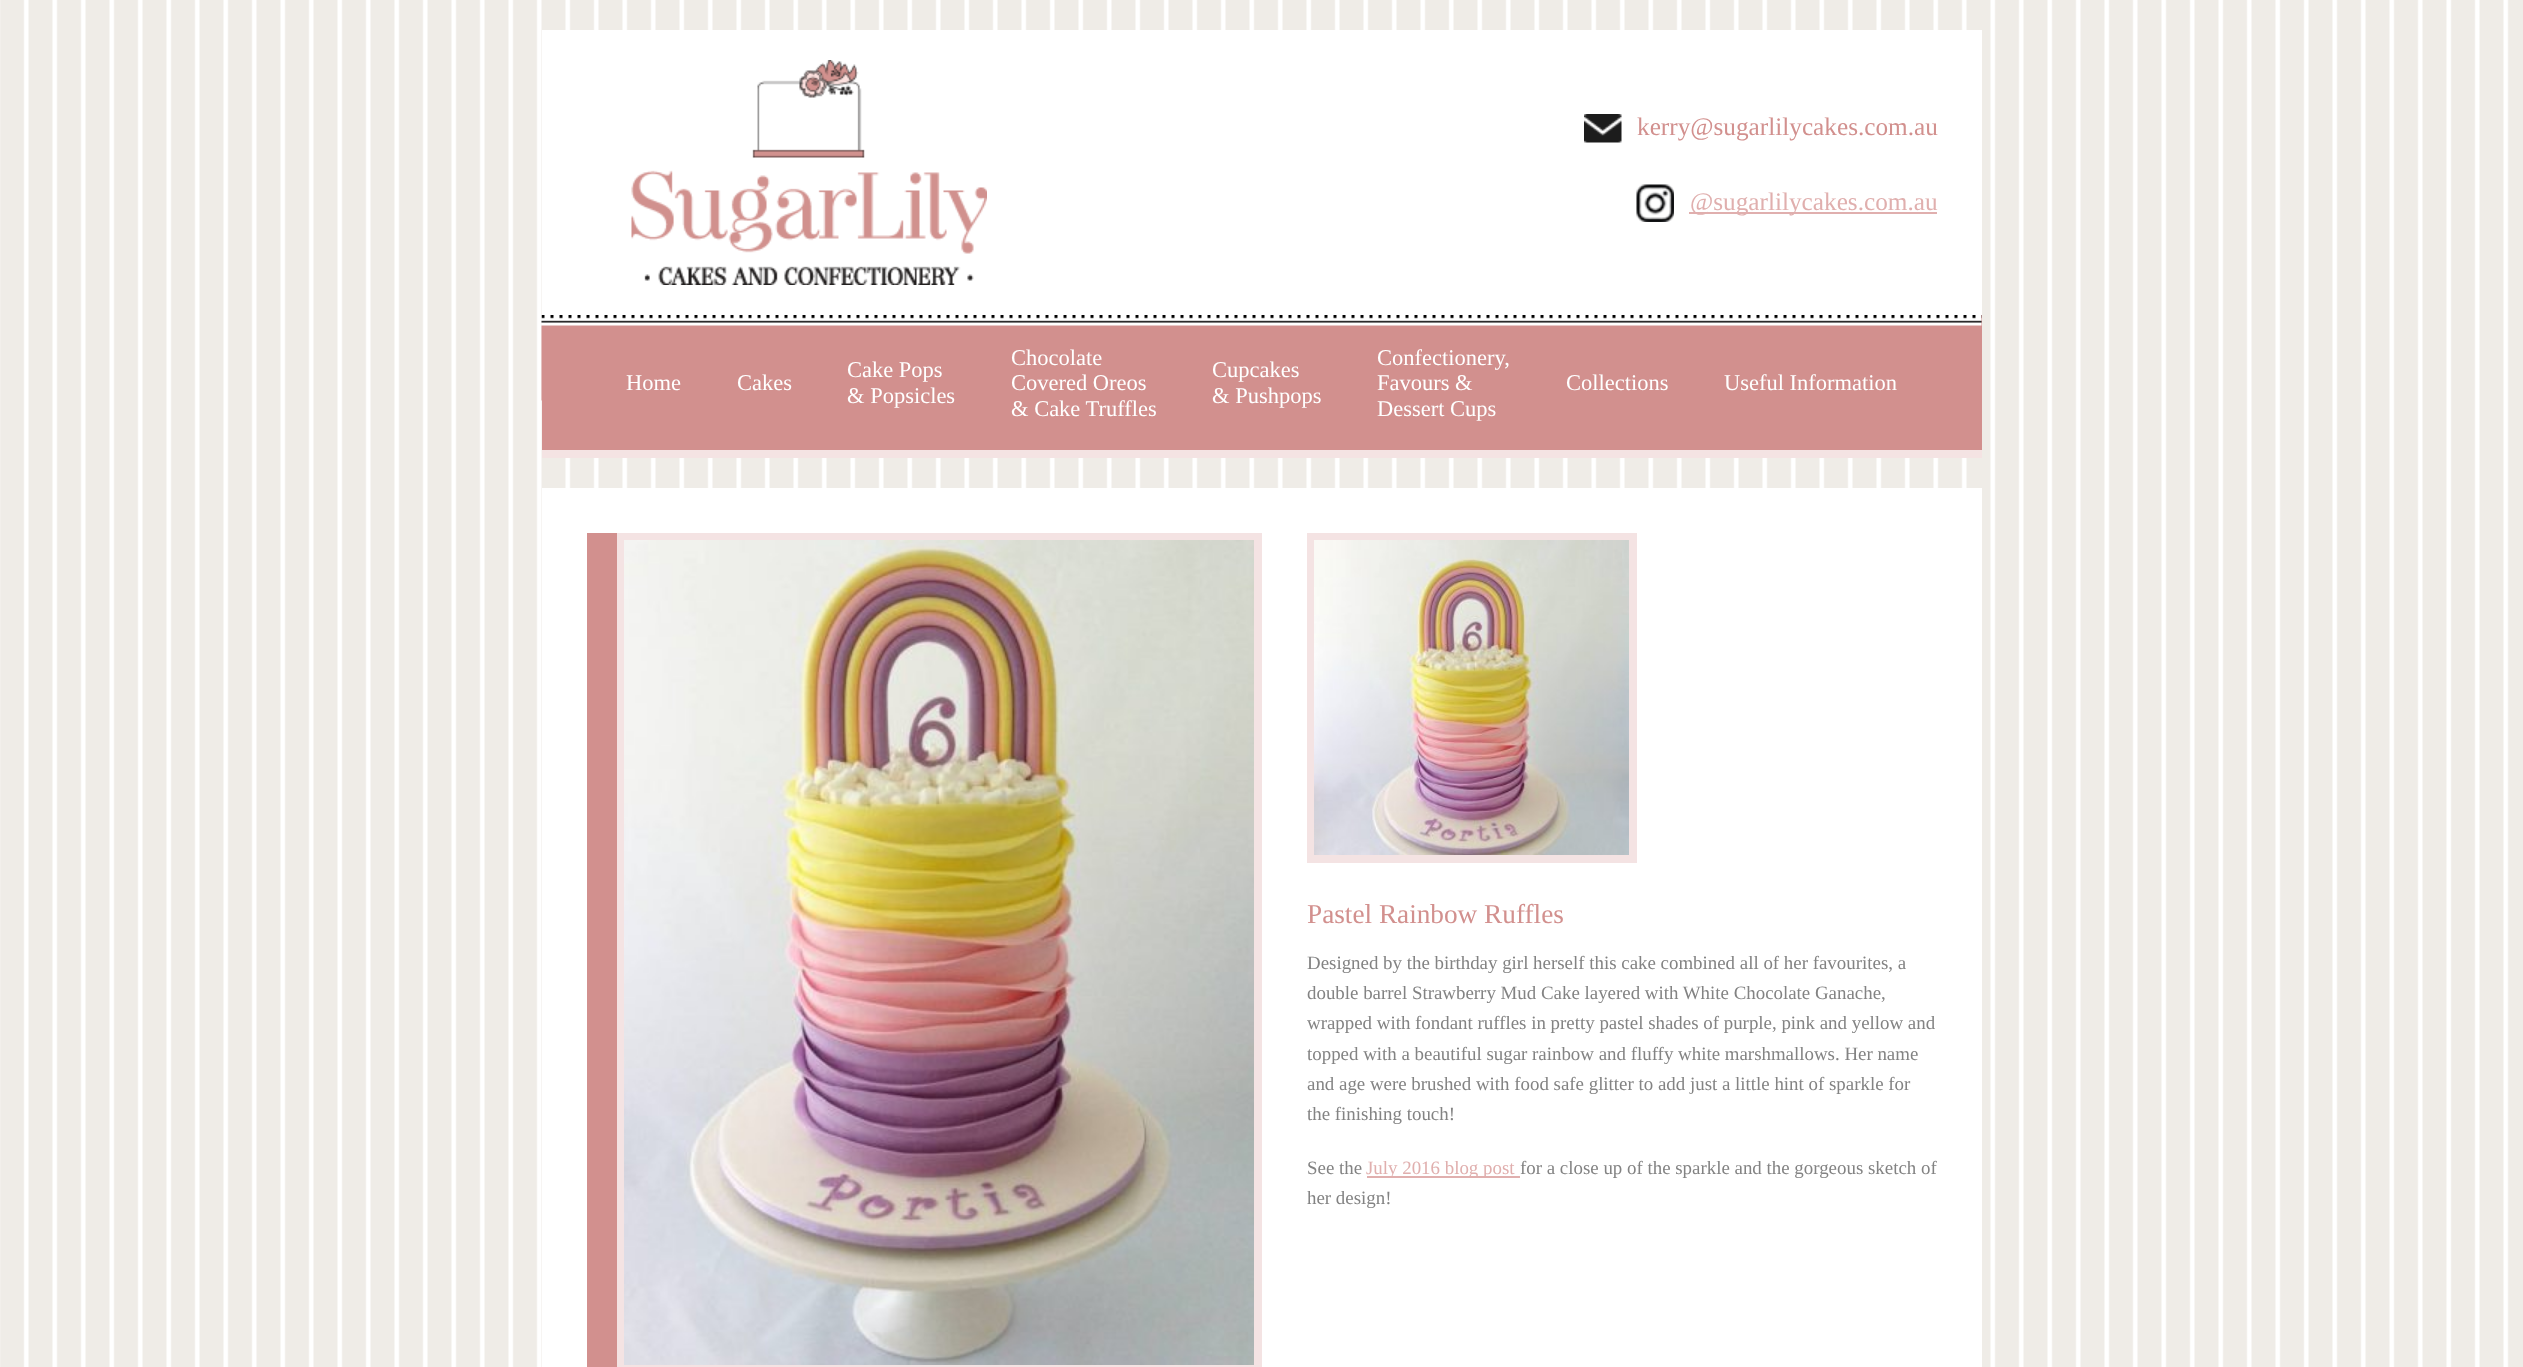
<svg xmlns="http://www.w3.org/2000/svg" width="2523" height="1367" viewBox="0 0 2523 1367">
  <rect width="100%" height="100%" fill="#fff"/>
  <image x="0" y="0" width="2523" height="1367" href="img/1.png"/>
  <path d="M542 30h1440v285H542z" fill="#fff"/>
  <path d="M542 450h1440v8H542z" fill="#f4e3e3"/>
  <image x="631" y="60" width="356" height="225" href="img/2.png"/>
  <image x="1584" y="114" width="38" height="29" href="img/3.png"/>
  <image x="1636" y="184" width="38" height="38" href="img/4.png"/>
  <path d="M1689 212h248v2H1689z" fill="#e0afae"/>
  <path d="M542 315h1440v135H542z" fill="#d2908e"/>
  <image x="541" y="315" width="1441" height="86" href="img/5.png"/>
  <path d="M542 488h1440v879H542z" fill="#fff"/>
  <path d="M587 533h30v834H587z" fill="#d2908e"/>
  <path d="M621 537h637v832H621z" fill="none" stroke="#f4e3e3" stroke-width="8"/>
  <image x="624" y="540" width="630" height="825" href="img/6.png"/>
  <path d="M1311 537h322v322H1311z" fill="none" stroke="#f4e3e3" stroke-width="8"/>
  <image x="1314" y="540" width="315" height="315" href="img/7.png"/>
  <path d="M1367 1176h153v2H1367z" fill="#e0afae"/>
  <text x="1637" y="135" font-family="Liberation Serif" font-size="25.25" fill="#d2908e">kerry@sugarlilycakes.com.au</text>
  <text x="1690" y="210" font-family="Liberation Serif" font-size="25.25" fill="#e0afae">@sugarlilycakes.com.au</text>
  <g font-family="Liberation Serif" font-size="22.5" fill="#fff">
    <text x="626" y="390">Home</text>
    <text x="737" y="390">Cakes</text>
    <text x="847" y="377">Cake Pops</text>
    <text x="847" y="403">&amp; Popsicles</text>
    <text x="1011" y="365">Chocolate</text>
    <text x="1011" y="390">Covered Oreos</text>
    <text x="1011" y="416">&amp; Cake Truffles</text>
    <text x="1212" y="377">Cupcakes</text>
    <text x="1212" y="403">&amp; Pushpops</text>
    <text x="1377" y="365">Confectionery,</text>
    <text x="1377" y="390">Favours &amp;</text>
    <text x="1377" y="416">Dessert Cups</text>
    <text x="1566" y="390">Collections</text>
    <text x="1724" y="390">Useful Information</text>
  </g>
  <text x="1307" y="923" font-family="Liberation Serif" font-size="27.25" fill="#d2908e">Pastel Rainbow Ruffles</text>
  <g font-family="Liberation Serif" font-size="18.9" fill="#838383">
    <text x="1307" y="969">Designed by the birthday girl herself this cake combined all of her favourites, a</text>
    <text x="1307" y="999">double barrel Strawberry Mud Cake layered with White Chocolate Ganache,</text>
    <text x="1307" y="1029">wrapped with fondant ruffles in pretty pastel shades of purple, pink and yellow and</text>
    <text x="1307" y="1060">topped with a beautiful sugar rainbow and fluffy white marshmallows. Her name</text>
    <text x="1307" y="1090">and age were brushed with food safe glitter to add just a little hint of sparkle for</text>
    <text x="1307" y="1120">the finishing touch!</text>
    <text x="1307" y="1174">See the</text>
  </g>
  <text x="1366" y="1174" font-family="Liberation Serif" font-size="18.9" fill="#e0afae">July 2016 blog post</text>
  <g font-family="Liberation Serif" font-size="18.9" fill="#838383">
    <text x="1520" y="1174">for a close up of the sparkle and the gorgeous sketch of</text>
    <text x="1307" y="1204">her design!</text>
  </g>
</svg>
